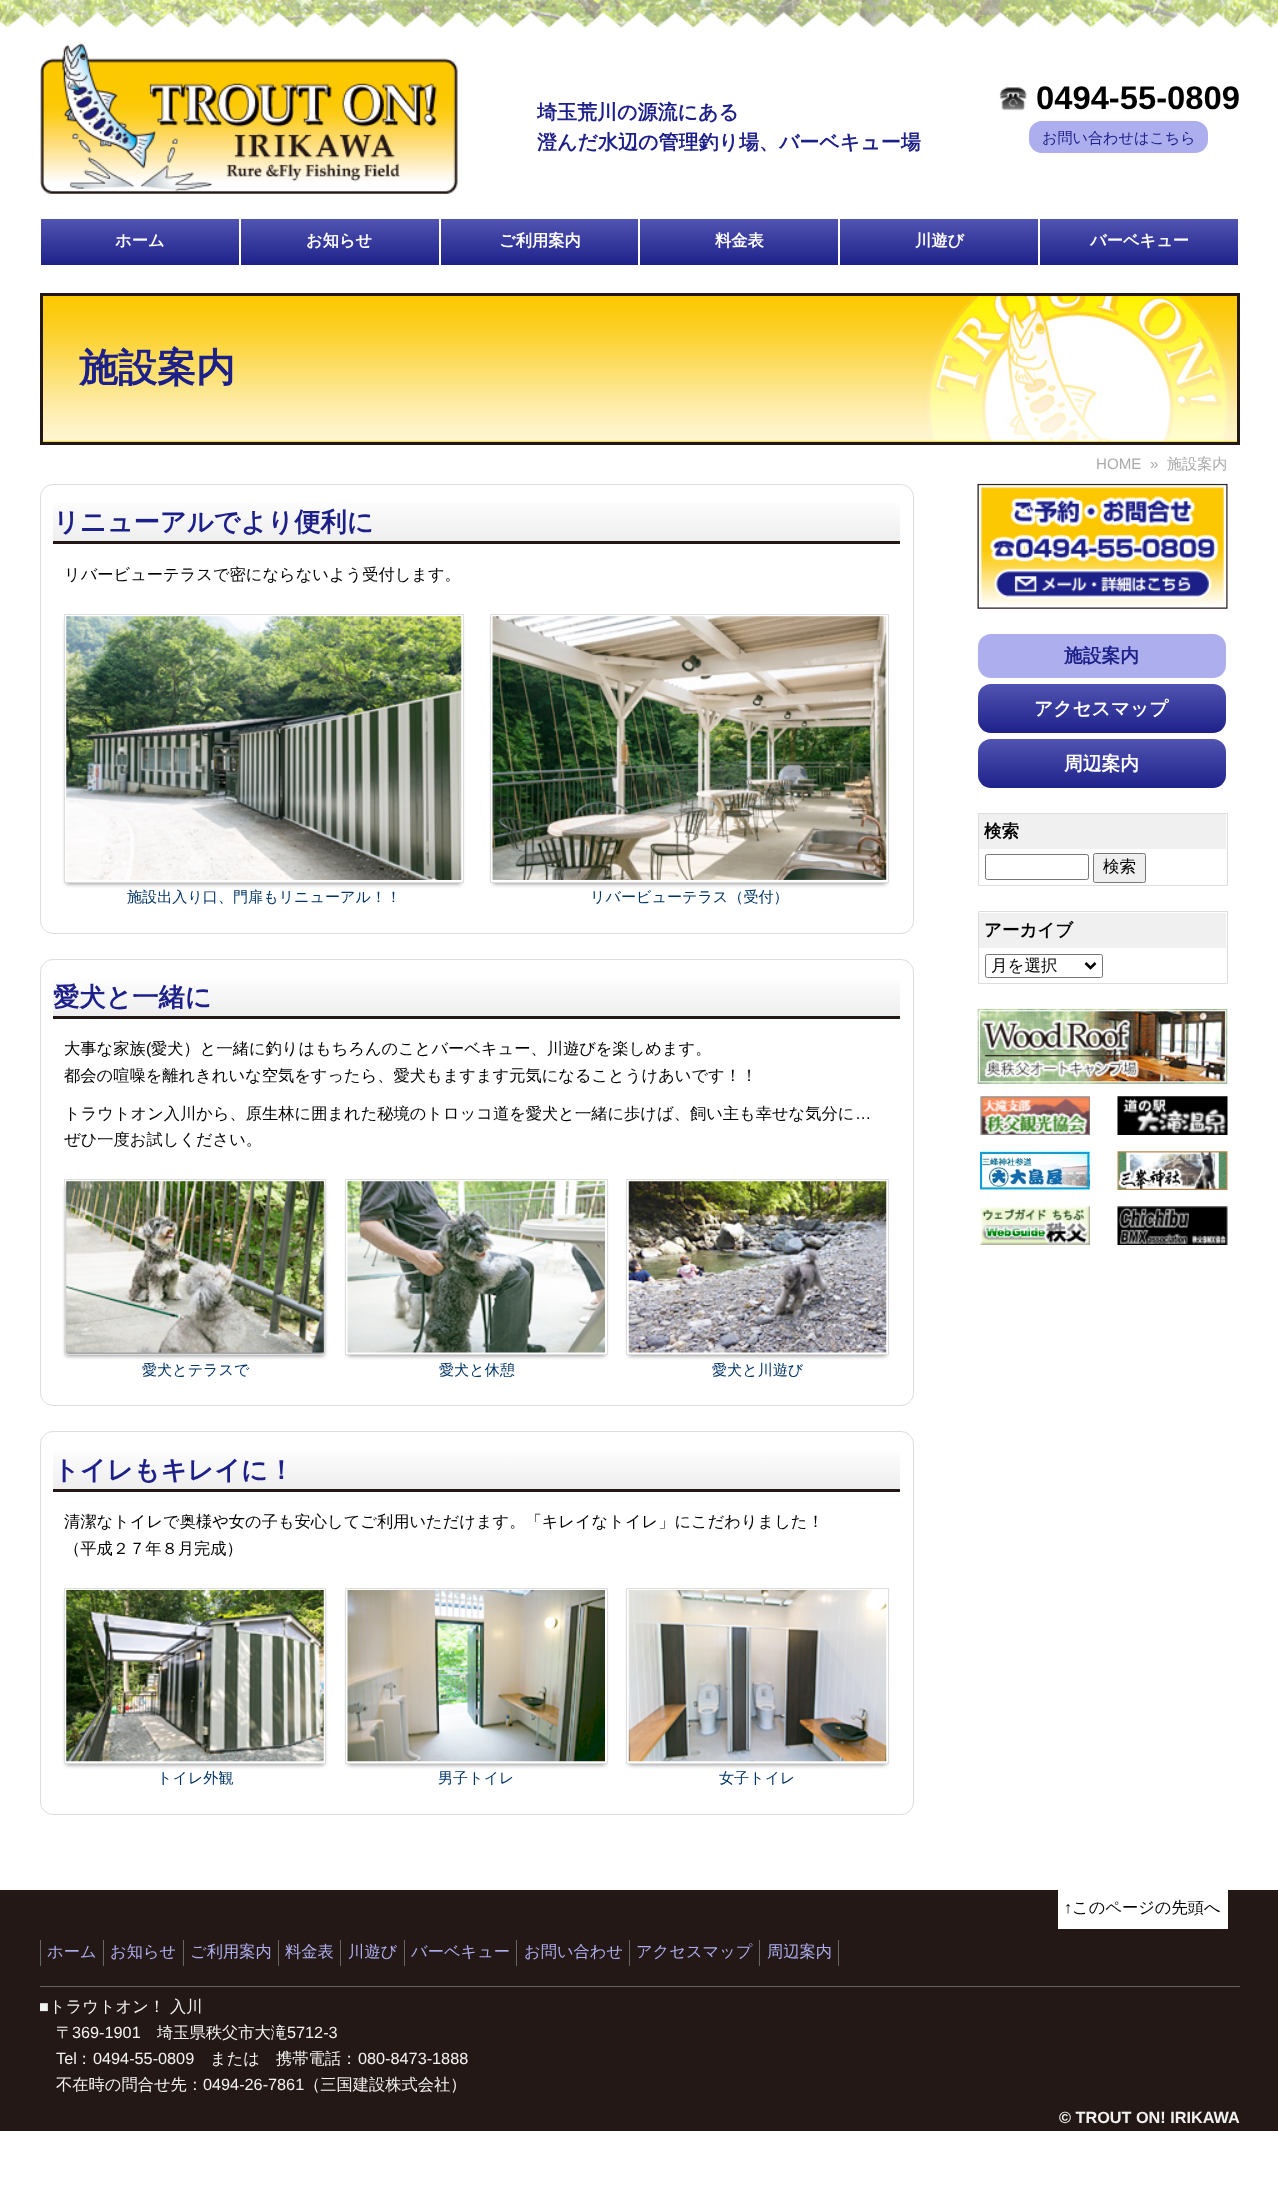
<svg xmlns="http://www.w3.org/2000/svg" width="1278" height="2190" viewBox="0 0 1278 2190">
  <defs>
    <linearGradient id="g1" gradientUnits="userSpaceOnUse" x1="140" y1="219" x2="140" y2="265"><stop offset="0" stop-color="#5154b1"/><stop offset="1" stop-color="#1e2189"/></linearGradient>
    <linearGradient id="g2" gradientUnits="userSpaceOnUse" x1="340" y1="219" x2="340" y2="265"><stop offset="0" stop-color="#5154b1"/><stop offset="1" stop-color="#1e2189"/></linearGradient>
    <linearGradient id="g3" gradientUnits="userSpaceOnUse" x1="539" y1="219" x2="539" y2="265"><stop offset="0" stop-color="#5154b1"/><stop offset="1" stop-color="#1e2189"/></linearGradient>
    <linearGradient id="g4" gradientUnits="userSpaceOnUse" x1="739" y1="219" x2="739" y2="265"><stop offset="0" stop-color="#5154b1"/><stop offset="1" stop-color="#1e2189"/></linearGradient>
    <linearGradient id="g5" gradientUnits="userSpaceOnUse" x1="939" y1="219" x2="939" y2="265"><stop offset="0" stop-color="#5154b1"/><stop offset="1" stop-color="#1e2189"/></linearGradient>
    <linearGradient id="g6" gradientUnits="userSpaceOnUse" x1="1139" y1="219" x2="1139" y2="265"><stop offset="0" stop-color="#5154b1"/><stop offset="1" stop-color="#1e2189"/></linearGradient>
    <linearGradient id="g7" gradientUnits="userSpaceOnUse" x1="476" y1="497" x2="476" y2="541"><stop offset="0" stop-color="#fff"/><stop offset="1" stop-color="#eee"/></linearGradient>
    <linearGradient id="g8" gradientUnits="userSpaceOnUse" x1="476" y1="973" x2="476" y2="1016"><stop offset="0" stop-color="#fff"/><stop offset="1" stop-color="#eee"/></linearGradient>
    <linearGradient id="g9" gradientUnits="userSpaceOnUse" x1="476" y1="1445" x2="476" y2="1489"><stop offset="0" stop-color="#fff"/><stop offset="1" stop-color="#eee"/></linearGradient>
    <linearGradient id="g10" gradientUnits="userSpaceOnUse" x1="1102" y1="684" x2="1102" y2="733"><stop offset="0" stop-color="#5154b1"/><stop offset="1" stop-color="#1e2189"/></linearGradient>
    <linearGradient id="g11" gradientUnits="userSpaceOnUse" x1="1102" y1="739" x2="1102" y2="788"><stop offset="0" stop-color="#5154b1"/><stop offset="1" stop-color="#1e2189"/></linearGradient>
  </defs>
  <rect width="100%" height="100%" fill="#fff"/>
  <image x="0" y="0" width="1278" height="28" href="img/1.png"/>
  <image x="40" y="43" width="418" height="151" href="img/2.png"/>
  <image x="999" y="87" width="28" height="24" href="img/3.png"/>
  <rect x="1029" y="121" width="179" height="32" rx="13" fill="#acaeed"/>
  <path d="M41 219h198v46H41z" fill="url(#g1)"/>
  <path d="M241 219h198v46H241z" fill="url(#g2)"/>
  <path d="M441 219h197v46H441z" fill="url(#g3)"/>
  <path d="M640 219h198v46H640z" fill="url(#g4)"/>
  <path d="M840 219h198v46H840z" fill="url(#g5)"/>
  <path d="M1040 219h198v46H1040z" fill="url(#g6)"/>
  <path d="M43 296h1194v146H43z" fill="#fcc903"/>
  <image x="43" y="296" width="1194" height="146" href="img/4.png"/>
  <path d="M41.5 294.5h1197v149H41.5z" fill="none" stroke="#231815" stroke-width="3"/>
  <rect x="40.5" y="484.5" width="873" height="449" rx="12.5" fill="none" stroke="#ddd"/>
  <path d="M53 503h847v38H53z" fill="url(#g7)"/>
  <path d="M53 541h847v3H53z" fill="#231815"/>
  <path d="M66 620h395v264H66z" fill="#999" filter="blur(2px)"/>
  <path d="M65 616h398v266H65z" fill="#fff"/>
  <path d="M64.5 614.5h399v268H64.5z" fill="none" stroke="#ddd"/>
  <image x="66" y="616" width="396" height="264" href="img/5.png"/>
  <path d="M493 620h393v264H493z" fill="#999" filter="blur(2px)"/>
  <path d="M491 616h397v266H491z" fill="#fff"/>
  <path d="M490.5 614.5h398v268H490.5z" fill="none" stroke="#ddd"/>
  <image x="492" y="616" width="395" height="264" href="img/6.png"/>
  <rect x="40.5" y="959.5" width="873" height="446" rx="12.5" fill="none" stroke="#ddd"/>
  <path d="M53 979h847v37H53z" fill="url(#g8)"/>
  <path d="M53 1016h847v3H53z" fill="#231815"/>
  <path d="M66 1185h258v171H66z" fill="#999" filter="blur(2px)"/>
  <path d="M64.5 1179.5h261v175H64.5z" fill="none" stroke="#ddd"/>
  <image x="66" y="1181" width="258" height="172" href="img/7.png"/>
  <path d="M348 1185h257v171H348z" fill="#999" filter="blur(2px)"/>
  <path d="M346 1181h261v173H346z" fill="#fff"/>
  <path d="M345.5 1179.5h262v175H345.5z" fill="none" stroke="#ddd"/>
  <image x="347" y="1181" width="258" height="172" href="img/8.png"/>
  <path d="M629 1185h257v171H629z" fill="#999" filter="blur(2px)"/>
  <path d="M627 1181h261v173H627z" fill="#fff"/>
  <path d="M626.5 1179.5h262v175H626.5z" fill="none" stroke="#ddd"/>
  <image x="628" y="1181" width="259" height="172" href="img/9.png"/>
  <rect x="40.5" y="1431.5" width="873" height="383" rx="12.5" fill="none" stroke="#ddd"/>
  <path d="M53 1451h847v38H53z" fill="url(#g9)"/>
  <path d="M53 1489h847v3H53z" fill="#231815"/>
  <path d="M66 1594h258v171H66z" fill="#999" filter="blur(2px)"/>
  <path d="M65 1590h260v173H65z" fill="#fff"/>
  <path d="M64.5 1588.5h261v175H64.5z" fill="none" stroke="#ddd"/>
  <image x="66" y="1590" width="258" height="172" href="img/10.png"/>
  <path d="M348 1594h257v171H348z" fill="#999" filter="blur(2px)"/>
  <path d="M346 1590h261v173H346z" fill="#fff"/>
  <path d="M345.5 1588.5h262v175H345.5z" fill="none" stroke="#ddd"/>
  <image x="347" y="1590" width="258" height="172" href="img/11.png"/>
  <path d="M629 1594h257v171H629z" fill="#999" filter="blur(2px)"/>
  <path d="M627 1590h261v173H627z" fill="#fff"/>
  <path d="M626.5 1588.5h262v175H626.5z" fill="none" stroke="#ddd"/>
  <image x="628" y="1590" width="259" height="172" href="img/12.png"/>
  <image x="977" y="483" width="251" height="126" href="img/13.png"/>
  <rect x="978" y="634" width="248" height="44" rx="13" fill="#acaeed"/>
  <rect x="978" y="684" width="248" height="49" rx="13" fill="url(#g10)"/>
  <rect x="978" y="739" width="248" height="49" rx="13" fill="url(#g11)"/>
  <path d="M978.5 813.5h249v72H978.5z" fill="none" stroke="#ddd"/>
  <path d="M979 814h247v35H979z" fill="#f0f0f0"/>
  <rect x="985.5" y="854.5" width="103" height="25" rx="2" fill="none" stroke="#767676"/>
  <rect x="1093.5" y="853.5" width="52" height="29" rx="2" fill="#efefef" stroke="#767676"/>
  <path d="M978.5 911.5h249v72H978.5z" fill="none" stroke="#ddd"/>
  <path d="M979 913h247v35H979z" fill="#f0f0f0"/>
  <rect x="985.5" y="954.5" width="117" height="23" rx="2" fill="none" stroke="#767676"/>
  <path d="M1085.5 963L1090.5 968L1095.5 963" fill="none" stroke="#000" stroke-width="2.5"/>
  <image x="977" y="1008" width="251" height="76" href="img/14.png"/>
  <image x="980" y="1096" width="110" height="39" href="img/15.png"/>
  <image x="1117" y="1096" width="111" height="39" href="img/16.png"/>
  <image x="980" y="1151" width="110" height="39" href="img/17.png"/>
  <image x="1117" y="1151" width="111" height="39" href="img/18.png"/>
  <image x="980" y="1206" width="110" height="39" href="img/19.png"/>
  <image x="1117" y="1206" width="111" height="39" href="img/20.png"/>
  <path d="M0 1890h1278v241H0z" fill="#231815"/>
  <path d="M1058 1890h170v39H1058z" fill="#fff"/>
  <path d="M40 1986h1200v1H40z" fill="#666"/>
  <path d="M838 1940h1v26H838z" fill="#666"/>
  <path d="M40 1940h1v26H40z" fill="#666"/>
  <path d="M103 1940h1v26H103z" fill="#666"/>
  <path d="M183 1940h1v26H183z" fill="#666"/>
  <path d="M278 1940h1v26H278z" fill="#666"/>
  <path d="M340 1940h1v26H340z" fill="#666"/>
  <path d="M404 1940h1v26H404z" fill="#666"/>
  <path d="M516 1940h1v26H516z" fill="#666"/>
  <path d="M629 1940h1v26H629z" fill="#666"/>
  <path d="M759 1940h1v26H759z" fill="#666"/>
  <g font-family="WenQuanYi Zen Hei" font-size="20" font-weight="bold" fill="#1d2088">
    <text x="537" y="119">埼玉荒川の源流にある</text>
    <text x="537" y="149">澄んだ水辺の管理釣り場、バーベキュー場</text>
  </g>
  <text x="1036" y="109" font-family="Liberation Sans" font-size="32.75" font-weight="bold" fill="#000">0494-55-0809</text>
  <text x="1042" y="143" font-family="WenQuanYi Zen Hei" font-size="15.1" font-weight="500" fill="#1d2088">お問い合わせはこちら</text>
  <g font-family="WenQuanYi Zen Hei" font-size="16.25" font-weight="bold" fill="#fff">
    <text x="115" y="246">ホーム</text>
    <text x="306" y="246">お知らせ</text>
    <text x="499" y="246">ご利用案内</text>
    <text x="715" y="246">料金表</text>
    <text x="915" y="246">川遊び</text>
    <text x="1090" y="246">バーベキュー</text>
  </g>
  <text x="79" y="381" font-family="WenQuanYi Zen Hei" font-size="39" font-weight="bold" fill="#1d2088">施設案内</text>
  <g font-family="Liberation Sans" font-size="15.1" fill="#aaa">
    <text x="1096" y="469">HOME</text>
    <text x="1150" y="469">»</text>
  </g>
  <text x="1167" y="469" font-family="WenQuanYi Zen Hei" font-size="15.1" font-weight="500" fill="#aaa">施設案内</text>
  <text x="53" y="531" font-family="WenQuanYi Zen Hei" font-size="26.25" font-weight="bold" fill="#1d2088">リニューアルでより便利に</text>
  <text x="64" y="580" font-family="WenQuanYi Zen Hei" font-size="16.25" font-weight="500" fill="#000">リバービューテラスで密にならないよう受付します。</text>
  <g font-family="WenQuanYi Zen Hei" font-size="15.1" font-weight="500" fill="#036">
    <text x="127" y="902">施設出入り口、門扉もリニューアル！！</text>
    <text x="590" y="902">リバービューテラス（受付）</text>
  </g>
  <text x="53" y="1006" font-family="WenQuanYi Zen Hei" font-size="26.25" font-weight="bold" fill="#1d2088">愛犬と一緒に</text>
  <text x="64" y="1054" font-family="WenQuanYi Zen Hei" font-size="16.25" font-weight="500" fill="#000">大事な家族</text>
  <text x="146" y="1054" font-family="Liberation Sans" font-size="16.25" fill="#000">(</text>
  <g font-family="WenQuanYi Zen Hei" font-size="16.25" font-weight="500" fill="#000">
    <text x="151" y="1054">愛犬）と一緒に釣りはもちろんのことバーベキュー、川遊びを楽しめます。</text>
    <text x="64" y="1081">都会の喧噪を離れきれいな空気をすったら、愛犬もますます元気になることうけあいです！！</text>
    <text x="64" y="1119">トラウトオン入川から、原生林に囲まれた秘境のトロッコ道を愛犬と一緒に歩けば、飼い主も幸せな気分に</text>
  </g>
  <text x="855" y="1119" font-family="Liberation Sans" font-size="16.25" fill="#000">…</text>
  <text x="64" y="1145" font-family="WenQuanYi Zen Hei" font-size="16.25" font-weight="500" fill="#000">ぜひ一度お試しください。</text>
  <g font-family="WenQuanYi Zen Hei" font-size="15.1" font-weight="500" fill="#036">
    <text x="142" y="1375">愛犬とテラスで</text>
    <text x="439" y="1375">愛犬と休憩</text>
    <text x="712" y="1375">愛犬と川遊び</text>
  </g>
  <text x="53" y="1479" font-family="WenQuanYi Zen Hei" font-size="26.25" font-weight="bold" fill="#1d2088">トイレもキレイに！</text>
  <g font-family="WenQuanYi Zen Hei" font-size="16.25" font-weight="500" fill="#000">
    <text x="64" y="1527">清潔なトイレで奥様や女の子も安心してご利用いただけます。「キレイなトイレ」にこだわりました！</text>
    <text x="64" y="1554">（平成２７年８月完成）</text>
  </g>
  <g font-family="WenQuanYi Zen Hei" font-size="15.1" font-weight="500" fill="#036">
    <text x="157" y="1783">トイレ外観</text>
    <text x="438" y="1783">男子トイレ</text>
    <text x="719" y="1783">女子トイレ</text>
  </g>
  <text x="1064" y="662" font-family="WenQuanYi Zen Hei" font-size="18.75" font-weight="bold" fill="#1d2088">施設案内</text>
  <g font-family="WenQuanYi Zen Hei" font-size="18.75" font-weight="bold" fill="#fff">
    <text x="1034" y="715">アクセスマップ</text>
    <text x="1064" y="770">周辺案内</text>
  </g>
  <text x="984" y="837" font-family="WenQuanYi Zen Hei" font-size="17.5" font-weight="bold" fill="#000">検索</text>
  <text x="1103" y="872" font-family="WenQuanYi Zen Hei" font-size="16.5" font-weight="500" fill="#000">検索</text>
  <text x="984" y="936" font-family="WenQuanYi Zen Hei" font-size="17.5" font-weight="bold" fill="#000">アーカイブ</text>
  <text x="991" y="971" font-family="WenQuanYi Zen Hei" font-size="16.5" font-weight="500" fill="#000">月を選択</text>
  <text x="1064" y="1913" font-family="Liberation Sans" font-size="16.25" fill="#000">↑</text>
  <text x="1072" y="1913" font-family="WenQuanYi Zen Hei" font-size="16.25" font-weight="500" fill="#000">このページの先頭へ</text>
  <g font-family="WenQuanYi Zen Hei" font-size="16.25" font-weight="500" fill="#acaeed">
    <text x="47" y="1957">ホーム</text>
    <text x="110" y="1957">お知らせ</text>
    <text x="190" y="1957">ご利用案内</text>
    <text x="285" y="1957">料金表</text>
    <text x="348" y="1957">川遊び</text>
    <text x="411" y="1957">バーベキュー</text>
    <text x="524" y="1957">お問い合わせ</text>
    <text x="636" y="1957">アクセスマップ</text>
    <text x="767" y="1957">周辺案内</text>
  </g>
  <text x="39" y="2012" font-family="Liberation Sans" font-size="16.25" fill="#f2f2f2">■</text>
  <g font-family="WenQuanYi Zen Hei" font-size="16.25" font-weight="500" fill="#f2f2f2">
    <text x="49" y="2012">トラウトオン！ 入川</text>
    <text x="56" y="2038">〒</text>
  </g>
  <text x="72" y="2038" font-family="Liberation Sans" font-size="16.25" fill="#f2f2f2">369-1901</text>
  <text x="157" y="2038" font-family="WenQuanYi Zen Hei" font-size="16.25" font-weight="500" fill="#f2f2f2">埼玉県秩父市大滝</text>
  <g font-family="Liberation Sans" font-size="16.25" fill="#f2f2f2">
    <text x="287" y="2038">5712-3</text>
    <text x="56" y="2064">Tel</text>
  </g>
  <text x="76" y="2064" font-family="WenQuanYi Zen Hei" font-size="16.25" font-weight="500" fill="#f2f2f2">：</text>
  <text x="93" y="2064" font-family="Liberation Sans" font-size="16.25" fill="#f2f2f2">0494-55-0809</text>
  <g font-family="WenQuanYi Zen Hei" font-size="16.25" font-weight="500" fill="#f2f2f2">
    <text x="210" y="2064">または</text>
    <text x="276" y="2064">携帯電話：</text>
  </g>
  <text x="358" y="2064" font-family="Liberation Sans" font-size="16.25" fill="#f2f2f2">080-8473-1888</text>
  <text x="56" y="2090" font-family="WenQuanYi Zen Hei" font-size="16.25" font-weight="500" fill="#f2f2f2">不在時の問合せ先：</text>
  <text x="203" y="2090" font-family="Liberation Sans" font-size="16.25" fill="#f2f2f2">0494-26-7861</text>
  <text x="304" y="2090" font-family="WenQuanYi Zen Hei" font-size="16.25" font-weight="500" fill="#f2f2f2">（三国建設株式会社）</text>
  <text x="1059" y="2123" font-family="Liberation Sans" font-size="16.25" font-weight="bold" fill="#f2f2f2">© TROUT ON! IRIKAWA</text>
</svg>
